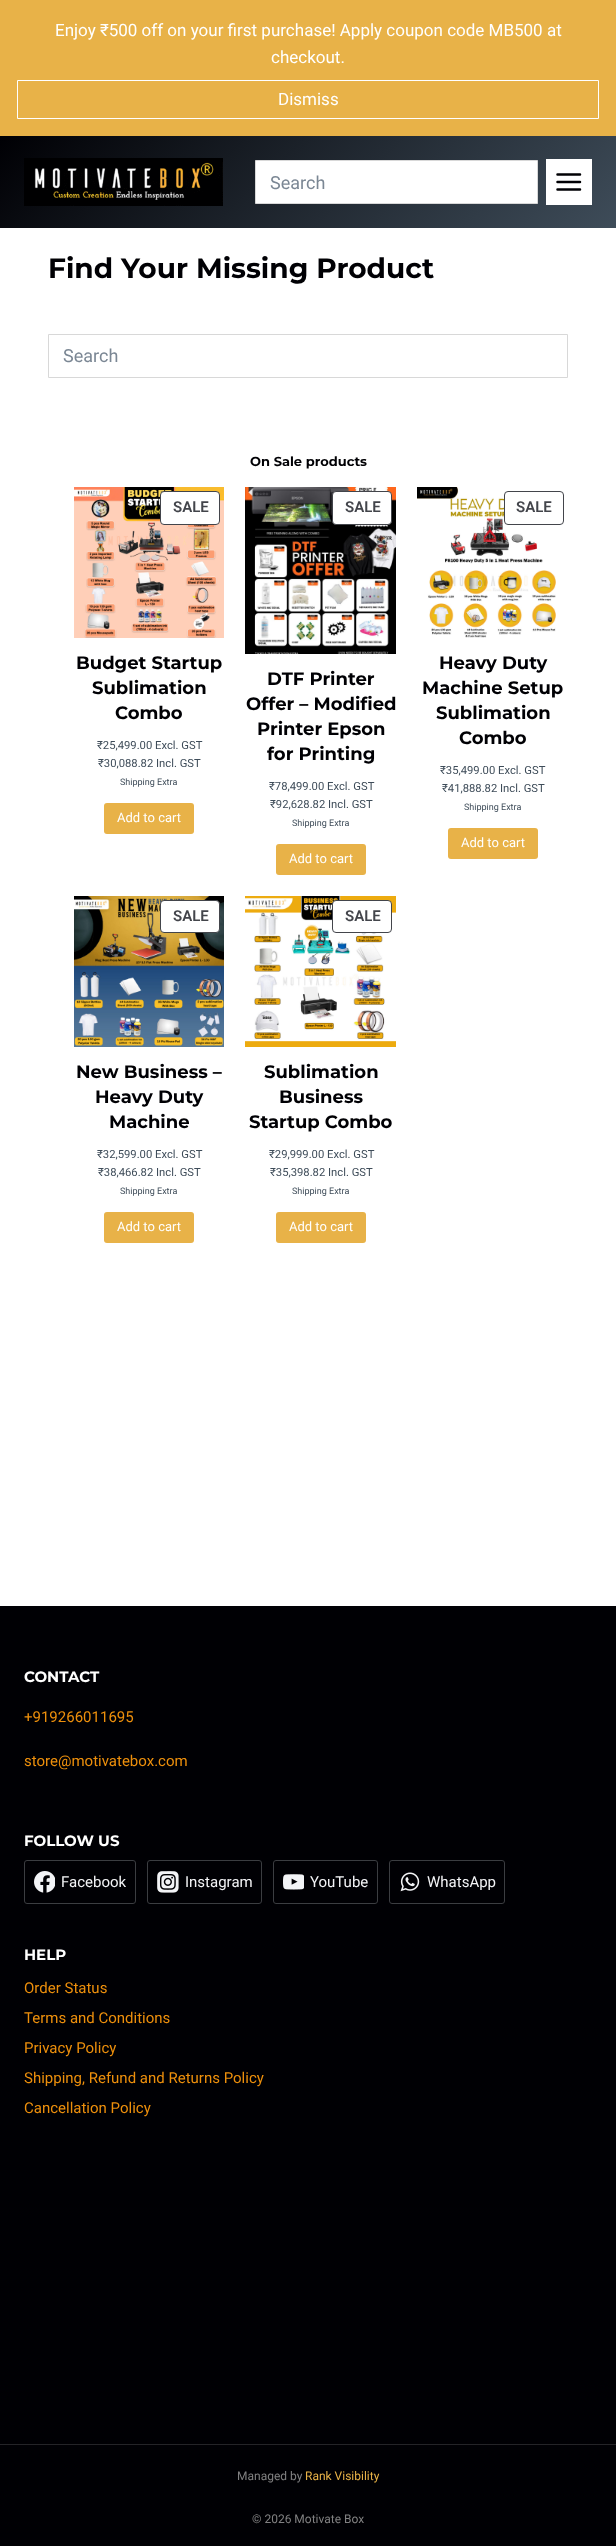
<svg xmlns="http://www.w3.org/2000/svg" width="616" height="2546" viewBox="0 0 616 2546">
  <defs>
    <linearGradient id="g1" gradientUnits="userSpaceOnUse" x1="131" y1="5" x2="485" y2="359"><stop offset="0" stop-color="#000004"/><stop offset="1" stop-color="#3e4c59"/></linearGradient>
  </defs>
  <rect width="100%" height="100%" fill="#fff"/>
  <path d="M0 0h616v136H0z" fill="#e8b248"/>
  <path d="M17.5 80.5h581v38H17.5z" fill="none" stroke="#fff"/>
  <path d="M0 136h616v92H0z" fill="url(#g1)"/>
  <image x="24" y="158" width="199" height="48" href="img/1.png"/>
  <path d="M255.5 160.5h282v43H255.5z" fill="#fff" stroke="#d8d8d8"/>
  <path d="M546 159h46v46H546z" fill="#fff"/>
  <path d="M557.5 182H580M557.5 174.5H580M557.5 189.5H580" fill="none" stroke="#000004" stroke-width="2.5" stroke-linecap="round" stroke-linejoin="round"/>
  <path d="M48.5 334.5h519v43H48.5z" fill="none" stroke="#d8d8d8"/>
  <image x="74" y="487" width="150" height="151" href="img/2.png"/>
  <rect x="160.5" y="491.5" width="59" height="33" rx="3.5" fill="#fff" stroke="#43454b"/>
  <rect x="104" y="803" width="90" height="31" rx="3" fill="#e8b248"/>
  <image x="245" y="487" width="151" height="167" href="img/3.png"/>
  <rect x="332.5" y="491.5" width="59" height="33" rx="3.5" fill="#fff" stroke="#43454b"/>
  <rect x="276" y="844" width="90" height="31" rx="3" fill="#e8b248"/>
  <image x="417" y="487" width="139" height="151" href="img/4.png"/>
  <rect x="504.5" y="491.5" width="59" height="33" rx="3.5" fill="#fff" stroke="#43454b"/>
  <rect x="448" y="828" width="90" height="31" rx="3" fill="#e8b248"/>
  <image x="74" y="896" width="150" height="151" href="img/5.png"/>
  <rect x="160.5" y="900.5" width="59" height="32" rx="3.5" fill="#fff" stroke="#43454b"/>
  <rect x="104" y="1212" width="90" height="31" rx="3" fill="#e8b248"/>
  <image x="245" y="896" width="151" height="151" href="img/6.png"/>
  <rect x="332.5" y="900.5" width="59" height="32" rx="3.5" fill="#fff" stroke="#43454b"/>
  <rect x="276" y="1212" width="90" height="31" rx="3" fill="#e8b248"/>
  <path d="M0 1606h616v940H0z" fill="#000004"/>
  <rect x="24.5" y="1860.5" width="111" height="43" rx="2.5" fill="none" stroke="#3b3d41"/>
  <image x="34" y="1871" width="21" height="22" href="img/7.png"/>
  <rect x="147.5" y="1860.5" width="114" height="43" rx="2.5" fill="none" stroke="#3b3d41"/>
  <image x="157" y="1871" width="22" height="22" href="img/8.png"/>
  <rect x="273.5" y="1860.5" width="104" height="43" rx="2.5" fill="none" stroke="#3b3d41"/>
  <image x="283" y="1874" width="21" height="16" href="img/9.png"/>
  <rect x="389.5" y="1860.5" width="115" height="43" rx="2.5" fill="none" stroke="#3b3d41"/>
  <image x="400" y="1872" width="20" height="20" href="img/10.png"/>
  <path d="M0 2444h616v1H0z" fill="#242428"/>
  <g font-family="Roboto" font-size="17" fill="#fff">
    <text x="55" y="36">Enjoy ₹500 off on your first purchase! Apply coupon code MB500 at</text>
    <text x="271" y="63">checkout.</text>
    <text x="278" y="105">Dismiss</text>
  </g>
  <text x="270" y="189" font-family="Roboto" font-size="18" fill="#7b8794">Search</text>
  <text x="48" y="278" font-family="Montserrat" font-size="28" font-weight="bold" fill="#000004">Find Your Missing Product</text>
  <text x="63" y="362" font-family="Roboto" font-size="18" fill="#7b8794">Search</text>
  <text x="250" y="466" font-family="Montserrat" font-size="13" font-weight="bold" fill="#000004">On Sale products</text>
  <text x="173" y="512" font-family="Roboto" font-size="15" font-weight="600" fill="#43454b">SALE</text>
  <g font-family="Montserrat" font-size="18" font-weight="bold" fill="#000004">
    <text x="76" y="669">Budget Startup</text>
    <text x="92" y="694">Sublimation</text>
    <text x="115" y="719">Combo</text>
  </g>
  <g font-family="Roboto" font-size="11.25" fill="#3e4c59">
    <text x="97" y="749">₹25,499.00 Excl. GST</text>
    <text x="98" y="767">₹30,088.82 Incl. GST</text>
  </g>
  <text x="120" y="785" font-family="Roboto" font-size="9" fill="#3e4c59">Shipping Extra</text>
  <text x="117" y="822" font-family="Roboto" font-size="13" fill="#fff">Add to cart</text>
  <text x="345" y="512" font-family="Roboto" font-size="15" font-weight="600" fill="#43454b">SALE</text>
  <g font-family="Montserrat" font-size="18" font-weight="bold" fill="#000004">
    <text x="267" y="685">DTF Printer</text>
    <text x="246" y="710">Offer – Modified</text>
    <text x="257" y="735">Printer Epson</text>
    <text x="267" y="760">for Printing</text>
  </g>
  <g font-family="Roboto" font-size="11.25" fill="#3e4c59">
    <text x="269" y="790">₹78,499.00 Excl. GST</text>
    <text x="270" y="808">₹92,628.82 Incl. GST</text>
  </g>
  <text x="292" y="826" font-family="Roboto" font-size="9" fill="#3e4c59">Shipping Extra</text>
  <text x="289" y="863" font-family="Roboto" font-size="13" fill="#fff">Add to cart</text>
  <text x="516" y="512" font-family="Roboto" font-size="15" font-weight="600" fill="#43454b">SALE</text>
  <g font-family="Montserrat" font-size="18" font-weight="bold" fill="#000004">
    <text x="439" y="669">Heavy Duty</text>
    <text x="422" y="694">Machine Setup</text>
    <text x="436" y="719">Sublimation</text>
    <text x="459" y="744">Combo</text>
  </g>
  <g font-family="Roboto" font-size="11.25" fill="#3e4c59">
    <text x="440" y="774">₹35,499.00 Excl. GST</text>
    <text x="442" y="792">₹41,888.82 Incl. GST</text>
  </g>
  <text x="464" y="810" font-family="Roboto" font-size="9" fill="#3e4c59">Shipping Extra</text>
  <text x="461" y="847" font-family="Roboto" font-size="13" fill="#fff">Add to cart</text>
  <text x="173" y="921" font-family="Roboto" font-size="15" font-weight="600" fill="#43454b">SALE</text>
  <g font-family="Montserrat" font-size="18" font-weight="bold" fill="#000004">
    <text x="76" y="1078">New Business –</text>
    <text x="95" y="1103">Heavy Duty</text>
    <text x="109" y="1128">Machine</text>
  </g>
  <g font-family="Roboto" font-size="11.25" fill="#3e4c59">
    <text x="97" y="1158">₹32,599.00 Excl. GST</text>
    <text x="98" y="1176">₹38,466.82 Incl. GST</text>
  </g>
  <text x="120" y="1194" font-family="Roboto" font-size="9" fill="#3e4c59">Shipping Extra</text>
  <text x="117" y="1231" font-family="Roboto" font-size="13" fill="#fff">Add to cart</text>
  <text x="345" y="921" font-family="Roboto" font-size="15" font-weight="600" fill="#43454b">SALE</text>
  <g font-family="Montserrat" font-size="18" font-weight="bold" fill="#000004">
    <text x="264" y="1078">Sublimation</text>
    <text x="279" y="1103">Business</text>
    <text x="249" y="1128">Startup Combo</text>
  </g>
  <g font-family="Roboto" font-size="11.25" fill="#3e4c59">
    <text x="269" y="1158">₹29,999.00 Excl. GST</text>
    <text x="270" y="1176">₹35,398.82 Incl. GST</text>
  </g>
  <text x="292" y="1194" font-family="Roboto" font-size="9" fill="#3e4c59">Shipping Extra</text>
  <text x="289" y="1231" font-family="Roboto" font-size="13" fill="#fff">Add to cart</text>
  <text x="24" y="1682" font-family="Montserrat" font-size="15" font-weight="bold" fill="#fff">CONTACT</text>
  <g font-family="Roboto" font-size="15" fill="#ed8f0c">
    <text x="24" y="1722">+919266011695</text>
    <text x="24" y="1766">store@motivatebox.com</text>
  </g>
  <text x="24" y="1846" font-family="Montserrat" font-size="15" font-weight="bold" fill="#fff">FOLLOW US</text>
  <g font-family="Roboto" font-size="15" fill="#f3f4f7">
    <text x="61" y="1887">Facebook</text>
    <text x="185" y="1887">Instagram</text>
    <text x="310" y="1887">YouTube</text>
    <text x="427" y="1887">WhatsApp</text>
  </g>
  <text x="24" y="1960" font-family="Montserrat" font-size="15" font-weight="bold" fill="#fff">HELP</text>
  <g font-family="Roboto" font-size="15" fill="#ed8f0c">
    <text x="24" y="1993">Order Status</text>
    <text x="24" y="2023">Terms and Conditions</text>
    <text x="24" y="2053">Privacy Policy</text>
    <text x="24" y="2083">Shipping, Refund and Returns Policy</text>
    <text x="24" y="2113">Cancellation Policy</text>
  </g>
  <text x="237" y="2480" font-family="Roboto" font-size="12" fill="#808082">Managed by</text>
  <text x="305" y="2480" font-family="Roboto" font-size="12" fill="#e8b248">Rank Visibility</text>
  <text x="252" y="2523" font-family="Roboto" font-size="12" fill="#808082">© 2026 Motivate Box</text>
</svg>
